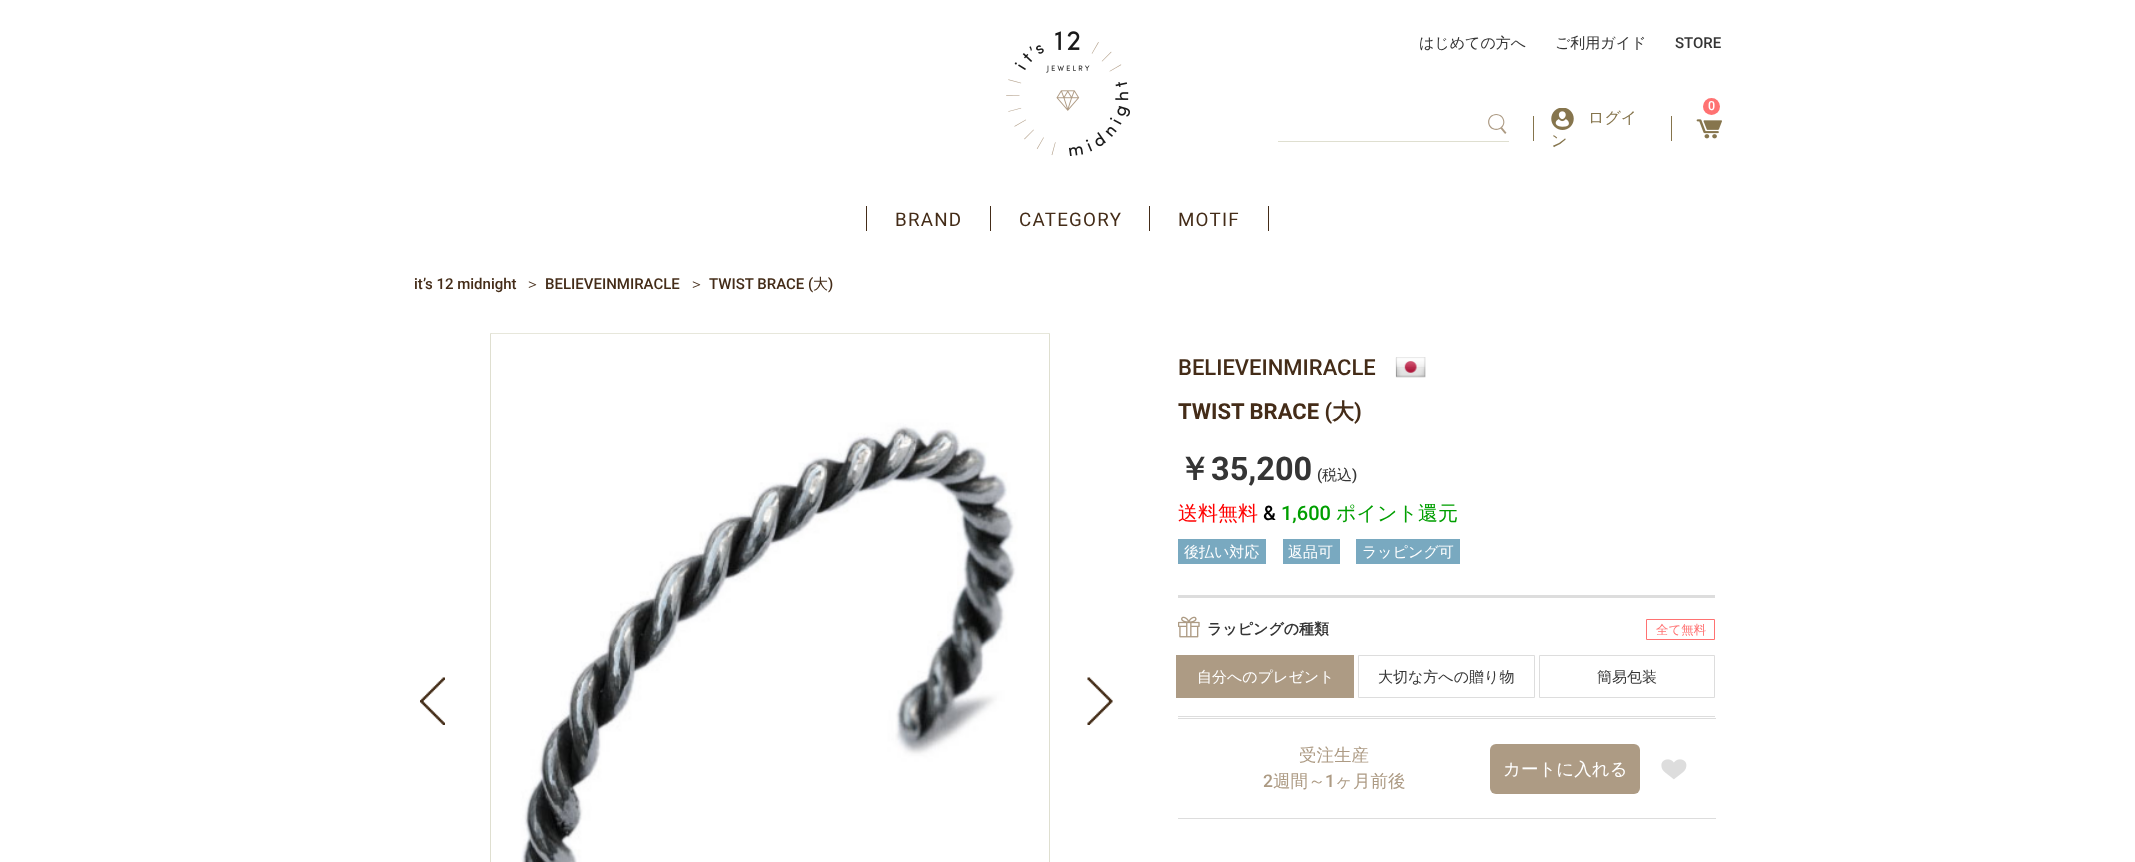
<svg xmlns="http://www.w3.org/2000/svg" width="2135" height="862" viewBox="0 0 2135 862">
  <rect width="100%" height="100%" fill="#fff"/>
  <image x="1006" y="31" width="124" height="125" href="img/1.png"/>
  <path d="M1671 116h1v25H1671z" fill="#85744c"/>
  <image x="1696" y="119" width="26" height="20" href="img/2.png"/>
  <circle cx="1711.5" cy="106.5" r="8.5" fill="#ff7272"/>
  <path d="M1278 141h231v1H1278z" fill="#dfdfd0"/>
  <image x="1488" y="114" width="19" height="20" href="img/3.png"/>
  <path d="M1533 116h1v25H1533z" fill="#85744c"/>
  <image x="1551" y="108" width="23" height="22" href="img/4.png"/>
  <path d="M990 206h1v25H990z" fill="#442c18"/>
  <path d="M866 206h1v25H866z" fill="#442c18"/>
  <path d="M1149 206h1v25H1149z" fill="#442c18"/>
  <path d="M1268 206h1v25H1268z" fill="#442c18"/>
  <image x="420" y="677" width="25" height="48" href="img/5.png"/>
  <path d="M490.5 333.5h559v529H490.5z" fill="none" stroke="#dfdfd0"/>
  <image x="491" y="333" width="558" height="529" href="img/6.png"/>
  <image x="1087" y="677" width="26" height="48" href="img/7.png"/>
  <image x="1395" y="357" width="31" height="21" href="img/8.png"/>
  <path d="M1178 539h88v25H1178z" fill="#79a9c0"/>
  <path d="M1283 539h57v25H1283z" fill="#79a9c0"/>
  <path d="M1356 539h104v25H1356z" fill="#79a9c0"/>
  <path d="M1178 716h537v1H1178z" fill="#ddd"/>
  <path d="M1178 595h537v3H1178z" fill="#ddd"/>
  <image x="1178" y="616" width="22" height="22" href="img/9.png"/>
  <path d="M1646.5 619.5h68v20H1646.5z" fill="none" stroke="#ff7272"/>
  <path d="M1176 655h178v43H1176z" fill="#ad9b84"/>
  <path d="M1358.5 655.5h176v42H1358.5z" fill="none" stroke="#ddd"/>
  <path d="M1539.5 655.5h175v42H1539.5z" fill="none" stroke="#ddd"/>
  <path d="M1178 718h538v1H1178z" fill="#ddd"/>
  <path d="M1178 818h538v1H1178z" fill="#ddd"/>
  <rect x="1490" y="744" width="150" height="50" rx="6" fill="#ad9b84"/>
  <image x="1661" y="759" width="26" height="21" href="img/10.png"/>
  <g font-family="WenQuanYi Zen Hei" font-size="15" font-weight="500" fill="#353535">
    <text x="1419" y="48">はじめての方へ</text>
    <text x="1555" y="48">ご利用ガイド</text>
  </g>
  <text x="1675" y="48" font-family="Roboto" font-size="15" font-weight="500" fill="#353535">STORE</text>
  <text x="1708" y="110" font-family="Roboto" font-size="12.5" font-weight="500" fill="#fff">0</text>
  <g font-family="WenQuanYi Zen Hei" font-size="16" font-weight="500" fill="#85744c">
    <text x="1588" y="123">ログイ</text>
    <text x="1551" y="146">ン</text>
  </g>
  <g font-family="Roboto" font-size="18.75" letter-spacing="1.25" fill="#442c18">
    <text x="895" y="226">BRAND</text>
    <text x="1019" y="226">CATEGORY</text>
    <text x="1178" y="226">MOTIF</text>
  </g>
  <text x="414" y="289" font-family="Roboto" font-size="15" font-weight="500" fill="#442c18">it’s 12 midnight</text>
  <text x="525" y="289" font-family="WenQuanYi Zen Hei" font-size="15" font-weight="500" fill="#442c18">＞</text>
  <text x="545" y="289" font-family="Roboto" font-size="15" font-weight="500" fill="#442c18">BELIEVEINMIRACLE</text>
  <text x="689" y="289" font-family="WenQuanYi Zen Hei" font-size="15" font-weight="500" fill="#442c18">＞</text>
  <text x="709" y="289" font-family="Roboto" font-size="15" font-weight="500" fill="#442c18">TWIST BRACE (</text>
  <text x="813" y="289" font-family="WenQuanYi Zen Hei" font-size="15" font-weight="500" fill="#442c18">大</text>
  <text x="828" y="289" font-family="Roboto" font-size="15" font-weight="500" fill="#442c18">)</text>
  <text x="1178" y="375" font-family="Roboto" font-size="22" font-weight="500" fill="#442c18">BELIEVEINMIRACLE</text>
  <text x="1178" y="419" font-family="Roboto" font-size="22" font-weight="bold" fill="#442c18">TWIST BRACE (</text>
  <text x="1332" y="419" font-family="WenQuanYi Zen Hei" font-size="22" font-weight="bold" fill="#442c18">大</text>
  <text x="1354" y="419" font-family="Roboto" font-size="22" font-weight="bold" fill="#442c18">)</text>
  <text x="1178" y="480" font-family="WenQuanYi Zen Hei" font-size="32.5" font-weight="bold" fill="#353535">￥</text>
  <text x="1211" y="480" font-family="Roboto" font-size="32.5" font-weight="bold" fill="#353535">35,200</text>
  <text x="1317" y="480" font-family="Roboto" font-size="15" font-weight="500" fill="#353535">(</text>
  <text x="1322" y="480" font-family="WenQuanYi Zen Hei" font-size="15" font-weight="500" fill="#353535">税込</text>
  <text x="1352" y="480" font-family="Roboto" font-size="15" font-weight="500" fill="#353535">)</text>
  <text x="1178" y="520" font-family="WenQuanYi Zen Hei" font-size="20" font-weight="500" fill="#f00">送料無料</text>
  <text x="1263" y="520" font-family="Roboto" font-size="20" font-weight="500" fill="#000">&amp;</text>
  <text x="1281" y="520" font-family="Roboto" font-size="20" font-weight="500" fill="#009f00">1,600</text>
  <text x="1336" y="520" font-family="WenQuanYi Zen Hei" font-size="20" font-weight="500" fill="#009f00">ポイント還元</text>
  <g font-family="WenQuanYi Zen Hei" font-size="15" font-weight="500" fill="#fff">
    <text x="1184" y="557">後払い対応</text>
    <text x="1288" y="557">返品可</text>
    <text x="1362" y="557">ラッピング可</text>
  </g>
  <text x="1207" y="634" font-family="WenQuanYi Zen Hei" font-size="15" font-weight="bold" fill="#353535">ラッピングの種類</text>
  <text x="1656" y="634" font-family="WenQuanYi Zen Hei" font-size="12.5" font-weight="500" fill="#ff7272">全て無料</text>
  <text x="1197" y="682" font-family="WenQuanYi Zen Hei" font-size="15" font-weight="500" fill="#fff">自分へのプレゼント</text>
  <g font-family="WenQuanYi Zen Hei" font-size="15" font-weight="500" fill="#353535">
    <text x="1378" y="682">大切な方への贈り物</text>
    <text x="1597" y="682">簡易包装</text>
  </g>
  <text x="1299" y="761" font-family="WenQuanYi Zen Hei" font-size="17.5" font-weight="500" fill="#ad9b84">受注生産</text>
  <text x="1263" y="787" font-family="Roboto" font-size="17.5" font-weight="500" fill="#ad9b84">2</text>
  <text x="1273" y="787" font-family="WenQuanYi Zen Hei" font-size="17.5" font-weight="500" fill="#ad9b84">週間～</text>
  <text x="1325" y="787" font-family="Roboto" font-size="17.5" font-weight="500" fill="#ad9b84">1</text>
  <text x="1335" y="787" font-family="WenQuanYi Zen Hei" font-size="17.5" font-weight="500" fill="#ad9b84">ヶ月前後</text>
  <text x="1503" y="775" font-family="WenQuanYi Zen Hei" font-size="17.5" font-weight="500" fill="#fff">カートに入れる</text>
</svg>
